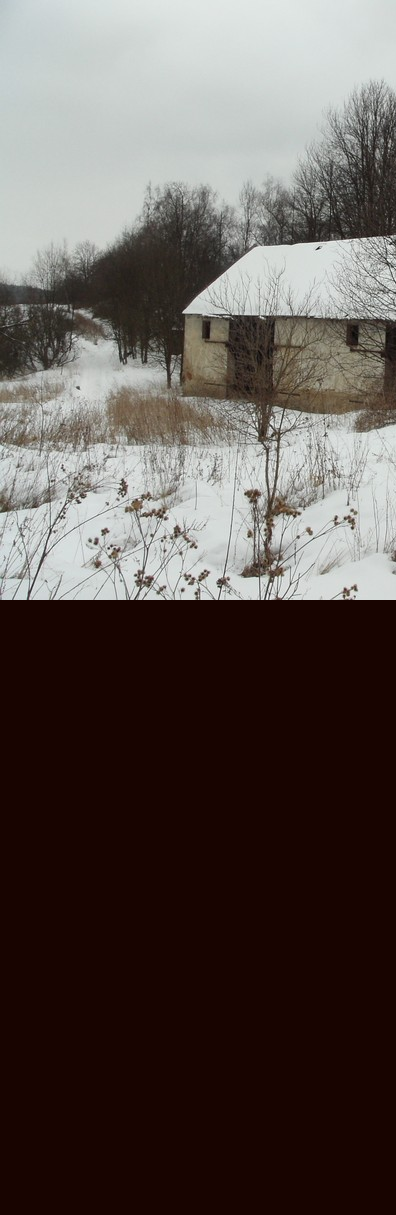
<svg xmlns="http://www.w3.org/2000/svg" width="396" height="1215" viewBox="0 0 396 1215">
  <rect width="100%" height="100%" fill="#180400"/>
  <image x="0" y="0" width="396" height="600" href="img/1.png"/>
</svg>
